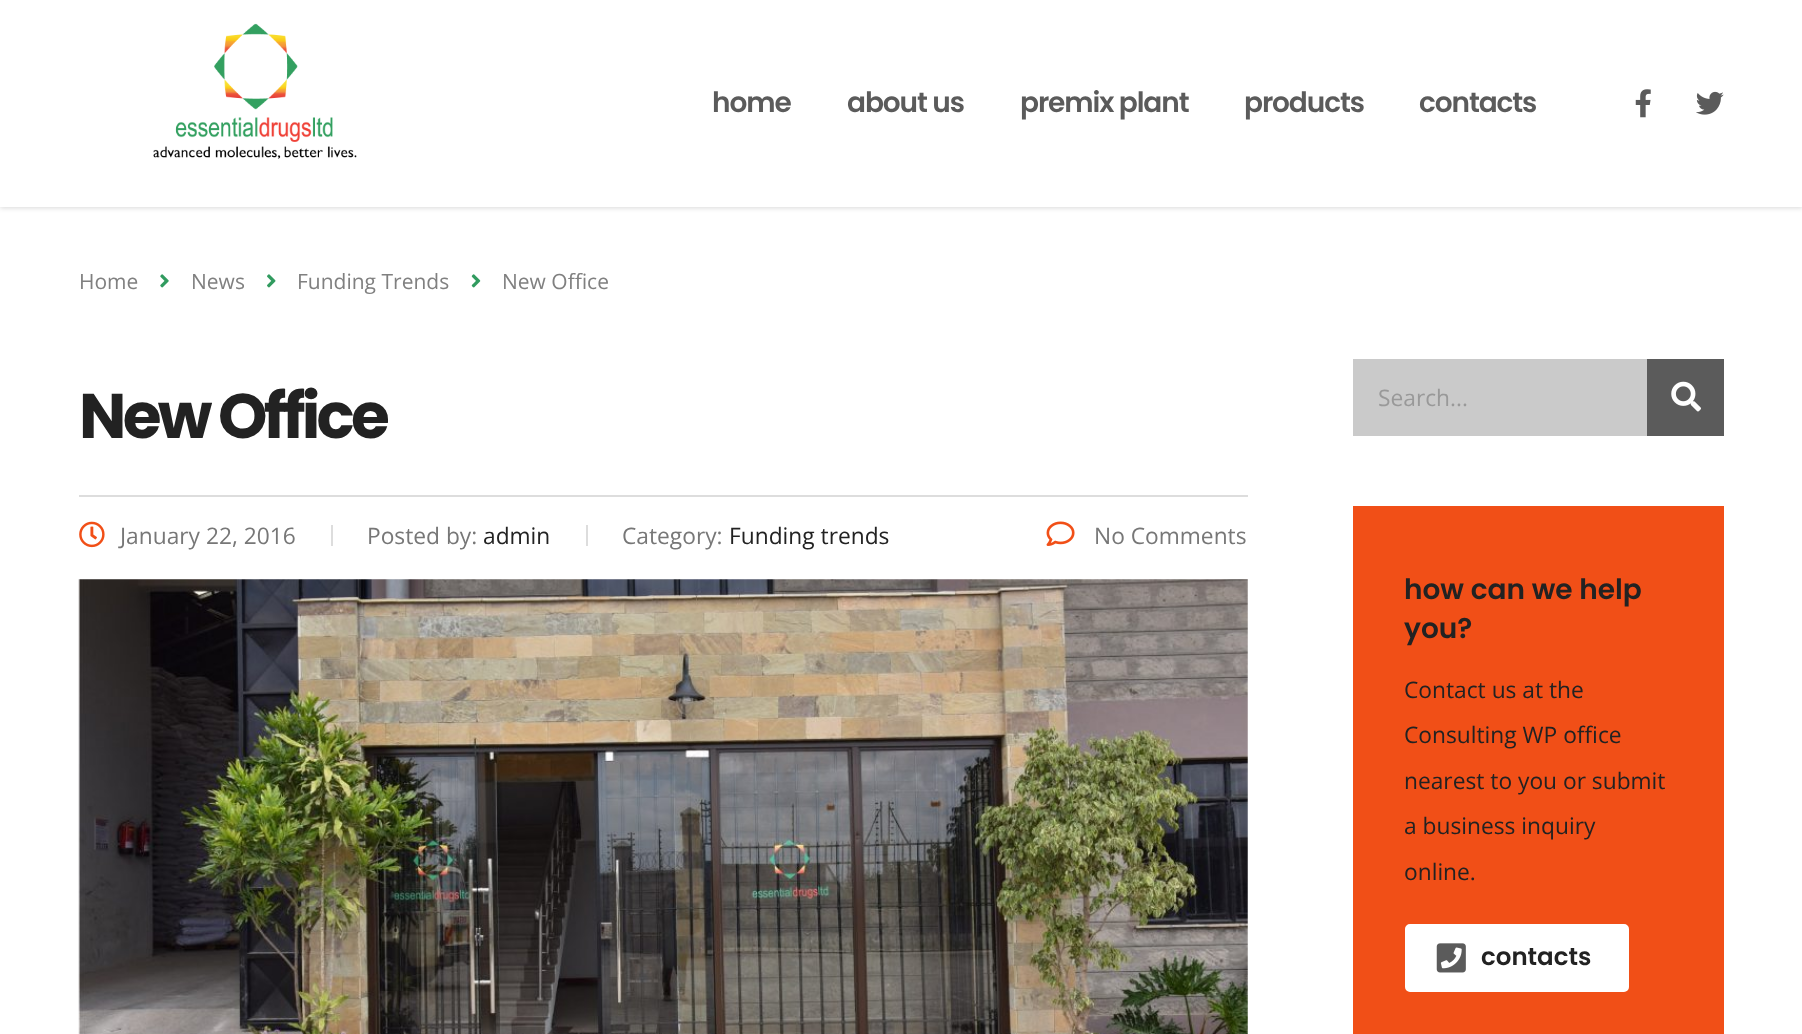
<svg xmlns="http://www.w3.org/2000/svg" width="1802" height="1034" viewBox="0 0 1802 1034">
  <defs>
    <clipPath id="clip1"><path d="M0 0H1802V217H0ZM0 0H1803V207H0Z" clip-rule="evenodd"/></clipPath>
  </defs>
  <rect width="100%" height="100%" fill="#fff"/>
  <g clip-path="url(#clip1)">
    <path d="M0 2h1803v206H0z" fill="#00000026" filter="blur(2.5px)"/>
  </g>
  <path d="M1 206h1801v1H1z" fill="#ffffff4d"/>
  <image x="153" y="23" width="204" height="136" href="img/1.png"/>
  <image x="1635" y="89" width="16" height="29" href="img/2.png"/>
  <image x="1696" y="91" width="28" height="24" href="img/3.png"/>
  <image x="160" y="274" width="9" height="14" href="img/4.png"/>
  <image x="267" y="274" width="9" height="14" href="img/5.png"/>
  <image x="471" y="274" width="10" height="14" href="img/6.png"/>
  <path d="M79 495h1169v2H79z" fill="#ddd"/>
  <image x="79" y="521" width="26" height="27" href="img/7.png"/>
  <path d="M331 525h2v21H331z" fill="#ddd"/>
  <path d="M586 525h2v21H586z" fill="#ddd"/>
  <image x="1046" y="521" width="29" height="25" href="img/8.png"/>
  <image x="78" y="579" width="1170" height="455" href="img/9.png"/>
  <path d="M1353 359h294v77H1353z" fill="#cacaca"/>
  <path d="M1647 359h77v77H1647z" fill="#5b5b5b"/>
  <image x="1671" y="381" width="30" height="31" href="img/10.png"/>
  <path d="M1353 506h371v528H1353z" fill="#f14f17"/>
  <rect x="1407.5" y="926.5" width="219" height="63" rx="2.5" fill="#fff" stroke="#fff" stroke-width="5"/>
  <image x="1436" y="943" width="30" height="30" href="img/11.png"/>
  <g font-family="Poppins" font-size="28" font-weight="600" letter-spacing="-1.1" fill="#5b5b5b">
    <text x="712" y="112">home</text>
    <text x="847" y="112">about us</text>
    <text x="1020" y="112">premix plant</text>
    <text x="1244" y="112">products</text>
    <text x="1419" y="112">contacts</text>
  </g>
  <g font-family="Open Sans" font-size="21" fill="#808080">
    <text x="79" y="289">Home</text>
    <text x="191" y="289">News</text>
    <text x="297" y="289">Funding Trends</text>
    <text x="502" y="289">New Office</text>
  </g>
  <text x="79" y="438" font-family="Poppins" font-size="63" font-weight="bold" letter-spacing="-3.75" fill="#222">New Office</text>
  <g font-family="Open Sans" font-size="22.75" fill="#777">
    <text x="120" y="544">January 22, 2016</text>
    <text x="367" y="544">Posted by:</text>
  </g>
  <text x="483" y="544" font-family="Open Sans" font-size="22.75" fill="#222">admin</text>
  <text x="622" y="544" font-family="Open Sans" font-size="22.75" fill="#777">Category:</text>
  <text x="729" y="544" font-family="Open Sans" font-size="22.75" fill="#222">Funding trends</text>
  <text x="1094" y="544" font-family="Open Sans" font-size="22.75" fill="#777">No Comments</text>
  <text x="1378" y="406" font-family="Open Sans" font-size="22.75" fill="#999">Search...</text>
  <g font-family="Poppins" font-size="28" font-weight="600" fill="#222">
    <text x="1404" y="599">how can we help</text>
    <text x="1404" y="638">you?</text>
  </g>
  <g font-family="Open Sans" font-size="22.75" fill="#222">
    <text x="1404" y="698">Contact us at the</text>
    <text x="1404" y="743">Consulting WP office</text>
    <text x="1404" y="789">nearest to you or submit</text>
    <text x="1404" y="834">a business inquiry</text>
    <text x="1404" y="880">online.</text>
  </g>
  <text x="1481" y="965" font-family="Poppins" font-size="24.5" font-weight="600" fill="#222">contacts</text>
</svg>
